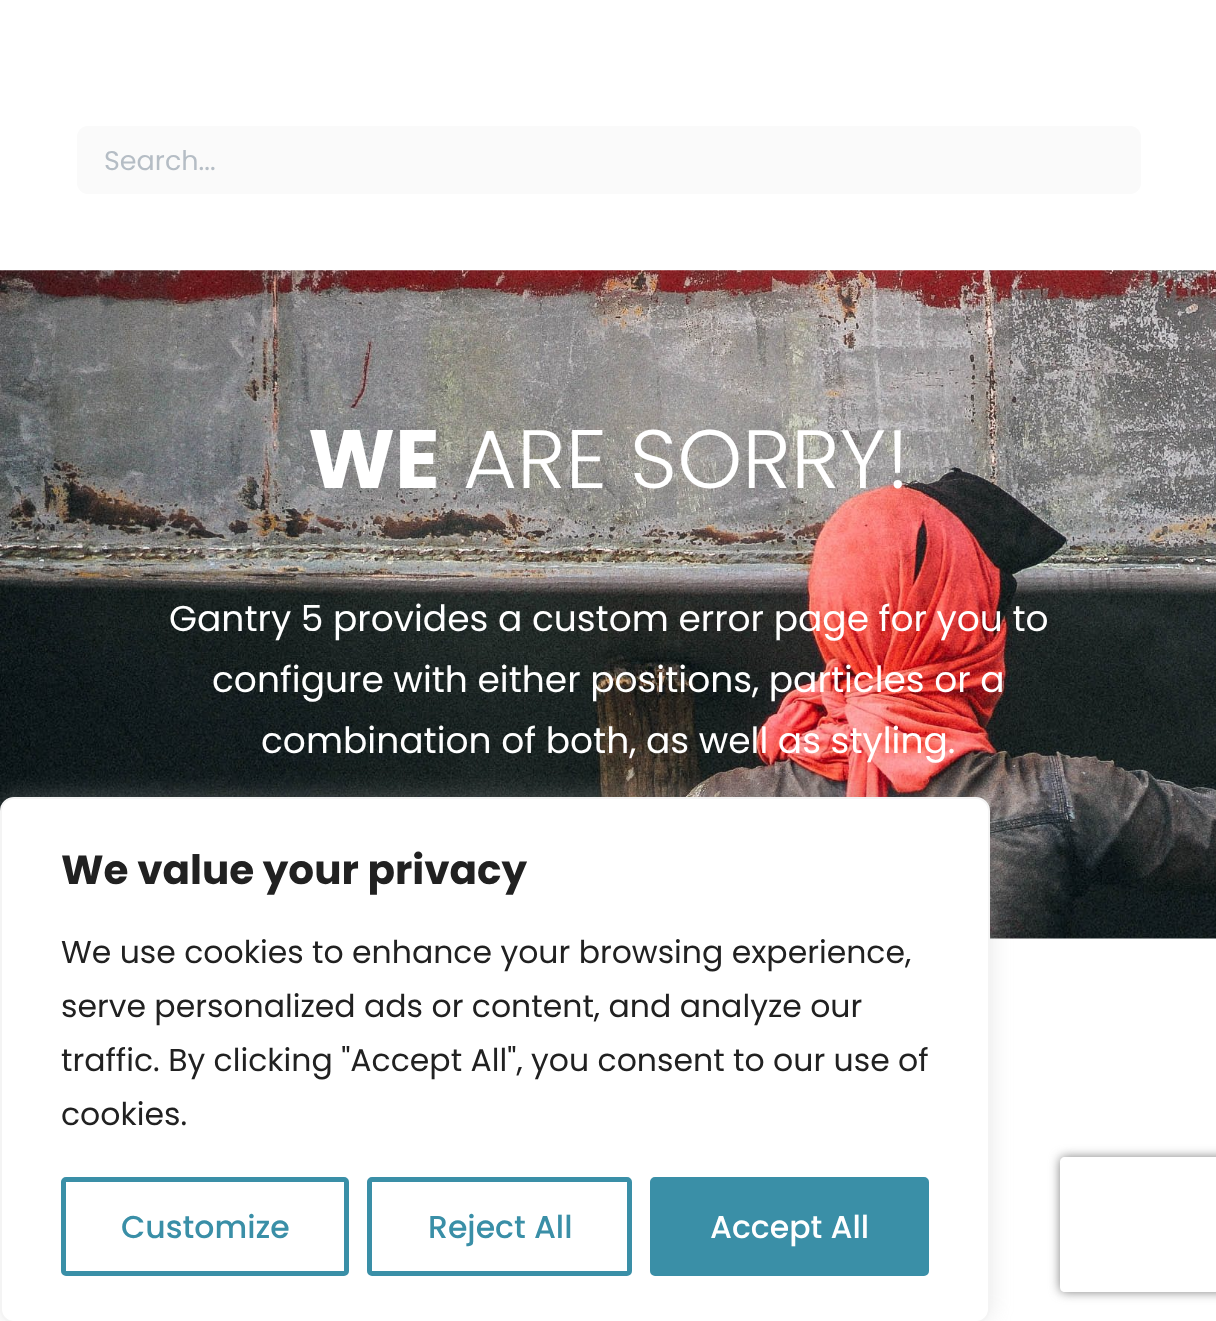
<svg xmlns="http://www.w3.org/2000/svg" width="1216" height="1321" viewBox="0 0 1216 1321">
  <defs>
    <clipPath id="clip1"><path d="M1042 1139H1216V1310H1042ZM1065 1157H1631C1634 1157 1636 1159 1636 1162V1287C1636 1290 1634 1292 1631 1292H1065C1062 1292 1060 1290 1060 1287V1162C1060 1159 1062 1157 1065 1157Z" clip-rule="evenodd"/></clipPath>
  </defs>
  <rect width="100%" height="100%" fill="#fff"/>
  <rect x="77" y="126" width="1064" height="68" rx="11" fill="#fafafa"/>
  <image x="0" y="270" width="1216" height="669" href="img/1.png"/>
  <rect y="794" width="990" height="527" rx="14" fill="#acabab4d" filter="blur(11px)"/>
  <rect x="1" y="798" width="988" height="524" rx="13" fill="#fff" stroke="#f4f4f4" stroke-width="2"/>
  <rect x="63.5" y="1179.5" width="283" height="94" rx="2.5" fill="none" stroke="#3a8fa7" stroke-width="5"/>
  <rect x="369.5" y="1179.5" width="260" height="94" rx="2.5" fill="none" stroke="#3a8fa7" stroke-width="5"/>
  <rect x="652.5" y="1179.5" width="274" height="94" rx="2.5" fill="#3a8fa7" stroke="#3a8fa7" stroke-width="5"/>
  <g clip-path="url(#clip1)">
    <rect x="1060" y="1157" width="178" height="135" rx="5" fill="#808080" filter="blur(5.5px)"/>
  </g>
  <text x="104" y="170" font-family="Poppins" font-size="27" fill="#b5bdc5">Search...</text>
  <text x="308" y="488" font-family="Poppins" font-size="82.75" font-weight="bold" fill="#fff">WE</text>
  <text x="463" y="488" font-family="Poppins" font-size="82.75" font-weight="300" fill="#fff">ARE SORRY!</text>
  <g font-family="Poppins" font-size="36" fill="#fff">
    <text x="169" y="631">Gantry 5 provides a custom error page for you to</text>
    <text x="212" y="692">configure with either positions, particles or a</text>
    <text x="261" y="753">combination of both, as well as styling.</text>
  </g>
  <text x="61" y="884" font-family="Poppins" font-size="40.5" font-weight="bold" fill="#212121">We value your privacy</text>
  <g font-family="Poppins" font-size="31.5" fill="#212121">
    <text x="61" y="963">We use cookies to enhance your browsing experience,</text>
    <text x="61" y="1017">serve personalized ads or content, and analyze our</text>
    <text x="61" y="1071">traffic. By clicking "Accept All", you consent to our use of</text>
    <text x="61" y="1125">cookies.</text>
  </g>
  <g font-family="Poppins" font-size="31.5" font-weight="500" fill="#3a8fa7">
    <text x="121" y="1238">Customize</text>
    <text x="428" y="1238">Reject All</text>
  </g>
  <text x="710" y="1238" font-family="Poppins" font-size="31.5" font-weight="500" fill="#fff">Accept All</text>
</svg>
